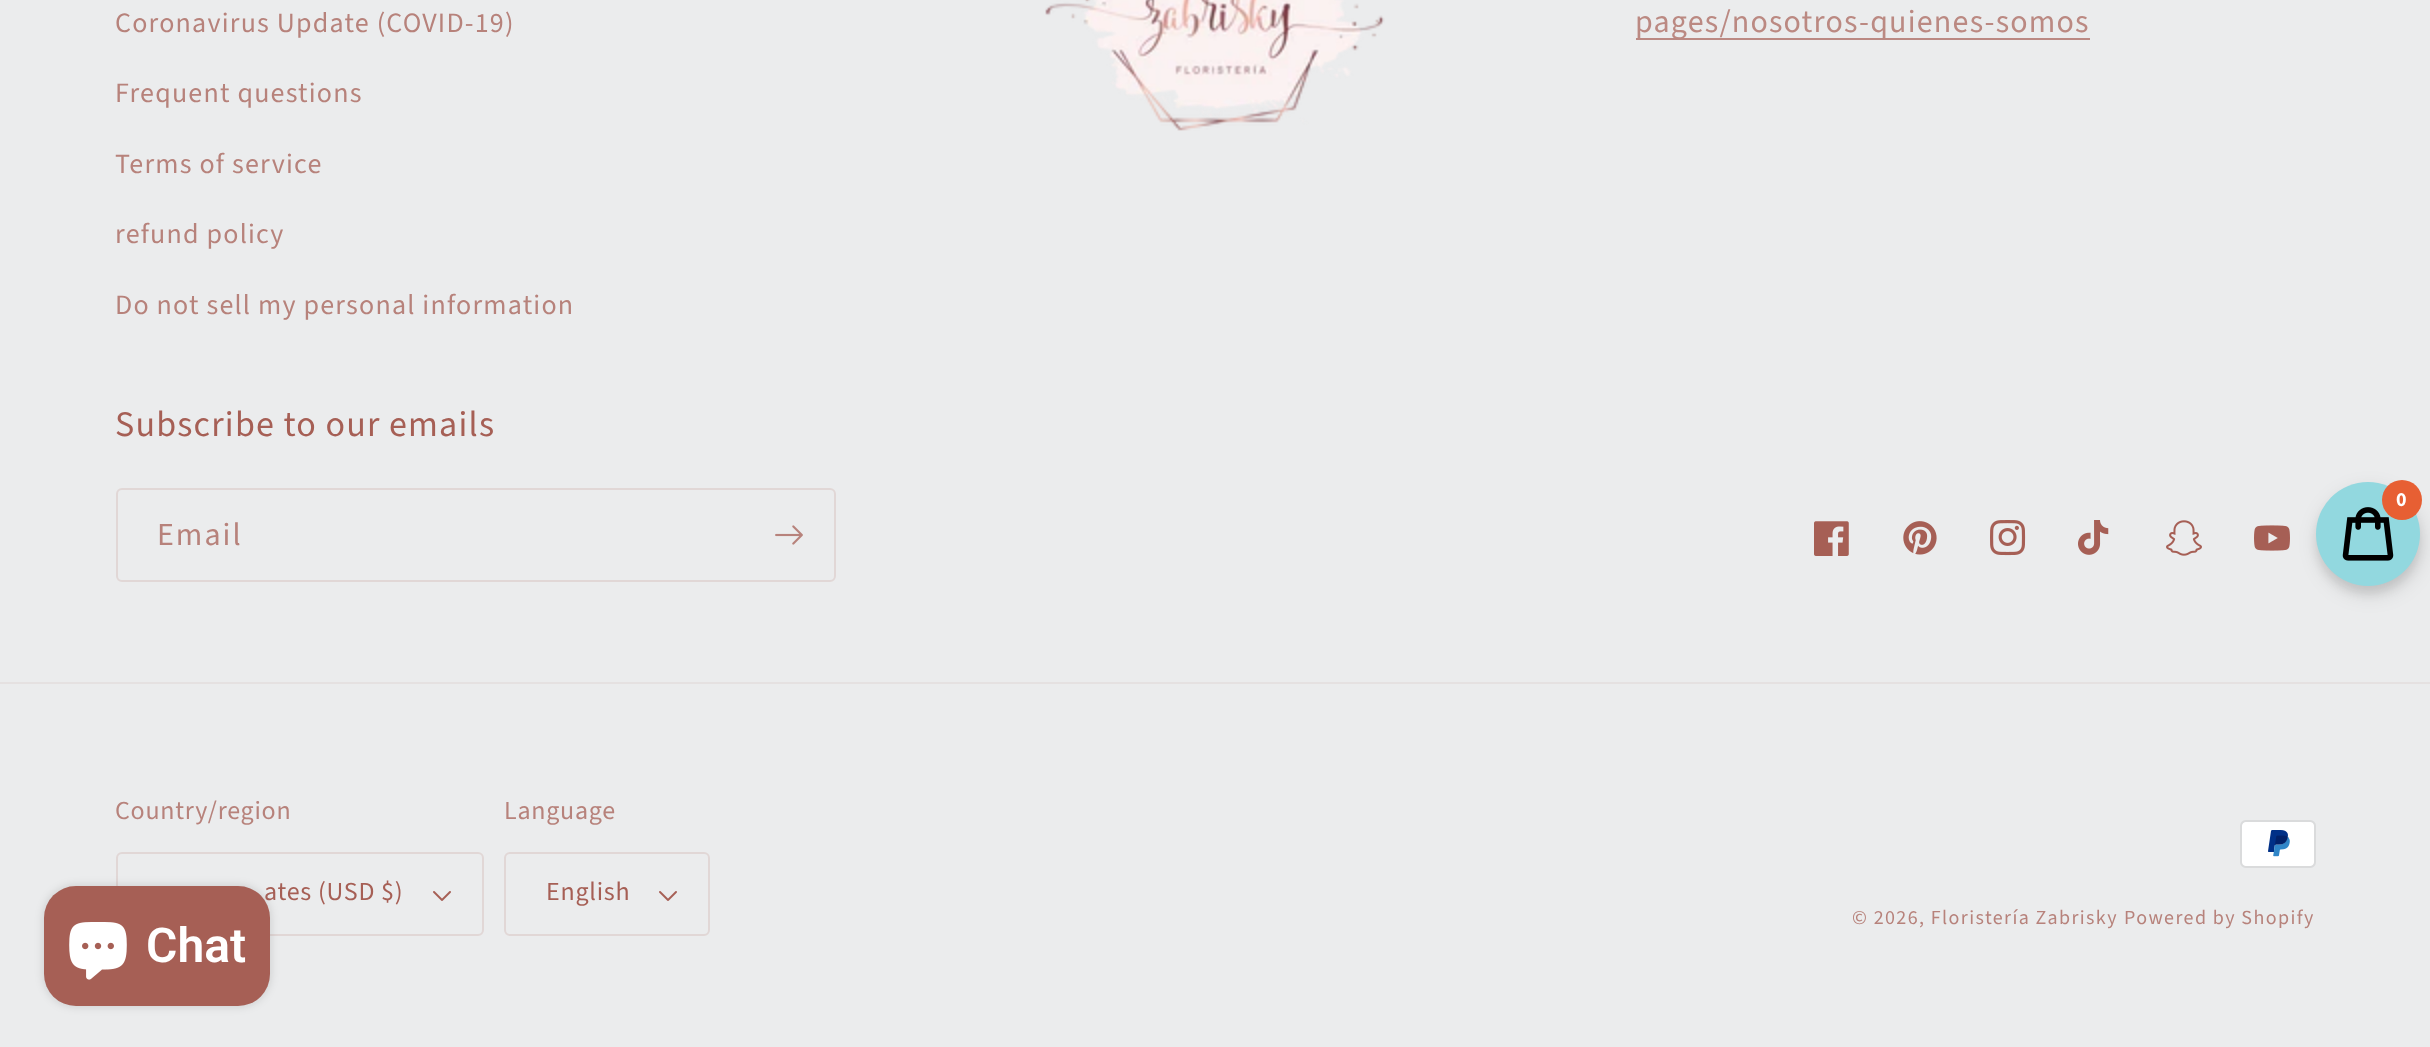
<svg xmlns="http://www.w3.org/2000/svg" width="2430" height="1047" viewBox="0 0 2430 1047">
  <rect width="100%" height="100%" fill="#ebeced"/>
  <image x="1045" y="0" width="340" height="131" href="img/1.png"/>
  <path d="M1636 38h454v2H1636z" fill="#bb8983"/>
  <rect x="117" y="489" width="718" height="92" rx="5" fill="none" stroke="#e1d7d6" stroke-width="2"/>
  <image x="775" y="525" width="28" height="20" href="img/2.png"/>
  <image x="1814" y="521" width="35" height="35" href="img/3.png"/>
  <image x="1903" y="521" width="34" height="34" href="img/4.png"/>
  <image x="1990" y="520" width="36" height="36" href="img/5.png"/>
  <image x="2078" y="520" width="31" height="35" href="img/6.png"/>
  <image x="2166" y="520" width="36" height="36" href="img/7.png"/>
  <image x="2254" y="525" width="36" height="26" href="img/8.png"/>
  <path d="M0 682h2430v2H0z" fill="#e5e1e1"/>
  <image x="433" y="891" width="18" height="10" href="img/9.png"/>
  <rect x="117" y="853" width="366" height="82" rx="5" fill="none" stroke="#e1d7d6" stroke-width="2"/>
  <image x="659" y="891" width="18" height="10" href="img/9.png"/>
  <rect x="505" y="853" width="204" height="82" rx="5" fill="none" stroke="#e1d7d6" stroke-width="2"/>
  <image x="2240" y="820" width="76" height="48" href="img/10.png"/>
  <rect x="2316" y="490" width="104" height="104" rx="52" fill="#00000014" filter="blur(4px)"/>
  <rect x="2318" y="490" width="104" height="104" rx="52" fill="#0000001f" filter="blur(10px)"/>
  <circle cx="2368" cy="534" r="52" fill="#92d8df"/>
  <image x="2342" y="507" width="52" height="54" href="img/11.png"/>
  <circle cx="2402" cy="500" r="20" fill="#e75f33"/>
  <rect x="44" y="886" width="226" height="120" rx="32" fill="#00000026" filter="blur(5px)"/>
  <rect x="44" y="886" width="226" height="120" rx="32" fill="#a65f55"/>
  <image x="69" y="922" width="58" height="58" href="img/12.png"/>
  <g font-family="Source Sans Pro" font-size="28" letter-spacing="1.2" fill="#b7827b">
    <text x="115" y="32">Coronavirus Update (COVID-19)</text>
    <text x="115" y="102">Frequent questions</text>
    <text x="115" y="173">Terms of service</text>
    <text x="115" y="243">refund policy</text>
    <text x="115" y="314">Do not sell my personal information</text>
  </g>
  <text x="1635" y="32" font-family="Source Sans Pro" font-size="32" letter-spacing="1.2" fill="#bb8982">pages/nosotros-quienes-somos</text>
  <text x="115" y="436" font-family="Source Sans Pro" font-size="36" letter-spacing="1.2" fill="#a65f55">Subscribe to our emails</text>
  <text x="157" y="545" font-family="Source Sans Pro" font-size="32" letter-spacing="2" fill="#b7827b">Email</text>
  <text x="115" y="819" font-family="Source Sans Pro" font-size="26" letter-spacing="0.75" fill="#b7827b">Country/region</text>
  <text x="264" y="900" font-family="Source Sans Pro" font-size="26" letter-spacing="0.75" fill="#a65f55">ates (USD $)</text>
  <text x="504" y="819" font-family="Source Sans Pro" font-size="26" letter-spacing="0.75" fill="#b7827b">Language</text>
  <text x="546" y="900" font-family="Source Sans Pro" font-size="26" letter-spacing="0.75" fill="#a65f55">English</text>
  <g font-family="Source Sans Pro" font-size="20" letter-spacing="1.4" fill="#b7827b">
    <text x="1852" y="924">© 2026, Floristería Zabrisky</text>
    <text x="2124" y="924">Powered by Shopify</text>
  </g>
  <text x="2396" y="506" font-family="Source Sans Pro" font-size="20" font-weight="bold" letter-spacing="1.2" fill="#fff">0</text>
  <text x="146" y="962" font-family="Roboto" font-size="48" font-weight="600" fill="#fff">Chat</text>
</svg>
